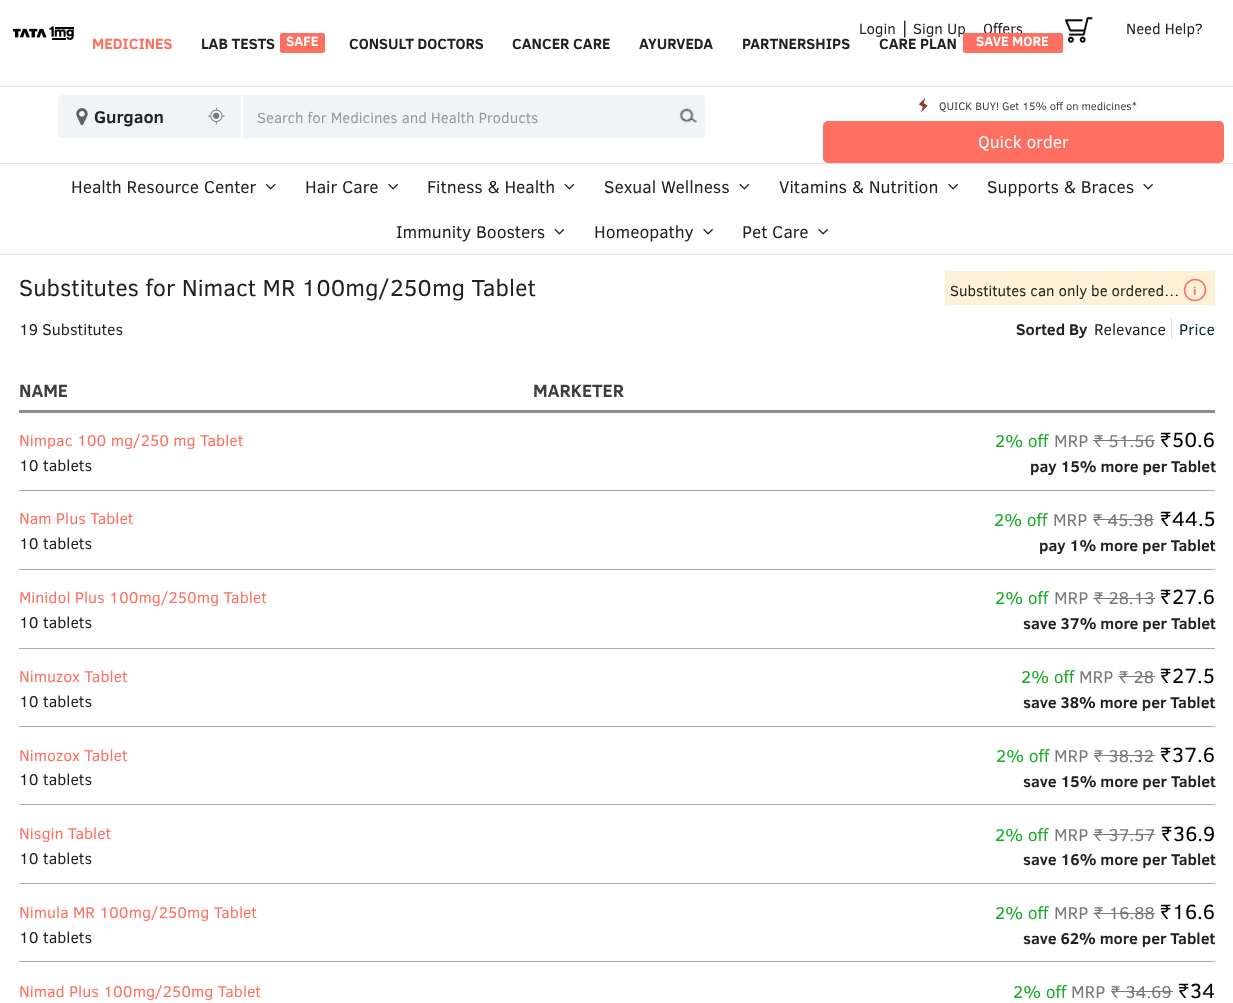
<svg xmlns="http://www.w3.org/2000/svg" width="1233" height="1003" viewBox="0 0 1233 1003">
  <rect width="100%" height="100%" fill="#fff"/>
  <path d="M0 86h1233v1H0z" fill="#e0e0e0"/>
  <image x="1065" y="17" width="28" height="26" href="img/1.png"/>
  <image x="13" y="26" width="61" height="14" href="img/2.png"/>
  <rect x="280" y="33" width="45" height="20" rx="2.5" fill="#ff6f61"/>
  <path d="M0 163h1233v1H0z" fill="#e0e0e0"/>
  <path d="M62 95H241V138H62C60 138 58 136 58 134V99C58 97 60 95 62 95Z" fill="#f1f4f6"/>
  <image x="76" y="108" width="12" height="18" href="img/3.png"/>
  <image x="208" y="108" width="17" height="17" href="img/4.png"/>
  <path d="M243 95H701C703 95 705 97 705 99V134C705 136 703 138 701 138H243Z" fill="#f1f4f6"/>
  <image x="679" y="108" width="19" height="16" href="img/5.png"/>
  <image x="918" y="97" width="10" height="16" href="img/6.png"/>
  <rect x="823" y="121" width="401" height="42" rx="5" fill="#ff6f61"/>
  <path d="M0 254h1233v1H0z" fill="#dedede"/>
  <image x="265" y="183" width="11" height="7" href="img/7.png"/>
  <image x="388" y="183" width="10" height="7" href="img/8.png"/>
  <image x="564" y="183" width="11" height="7" href="img/9.png"/>
  <image x="739" y="183" width="11" height="7" href="img/9.png"/>
  <image x="948" y="183" width="10" height="7" href="img/8.png"/>
  <image x="1143" y="183" width="10" height="7" href="img/8.png"/>
  <image x="554" y="228" width="11" height="7" href="img/9.png"/>
  <image x="703" y="228" width="10" height="7" href="img/8.png"/>
  <image x="818" y="228" width="10" height="7" href="img/8.png"/>
  <path d="M945 271h270v34H945z" fill="#fdf1d8"/>
  <image x="1183" y="278" width="24" height="24" href="img/10.png"/>
  <path d="M1171 318h1v21H1171z" fill="#ddd"/>
  <path d="M19 410h1196v3H19z" fill="#8d8d8d"/>
  <path d="M19 490h1196v1H19z" fill="#acacac"/>
  <path d="M1093 440h62v1H1093z" fill="#787878"/>
  <path d="M19 569h1196v1H19z" fill="#acacac"/>
  <path d="M1093 519h61v1H1093z" fill="#787878"/>
  <path d="M19 648h1196v1H19z" fill="#acacac"/>
  <path d="M1093 598h62v1H1093z" fill="#787878"/>
  <path d="M19 726h1196v1H19z" fill="#acacac"/>
  <path d="M1119 676h36v1H1119z" fill="#787878"/>
  <path d="M19 804h1196v1H19z" fill="#acacac"/>
  <path d="M1094 755h61v1H1094z" fill="#787878"/>
  <path d="M19 883h1196v1H19z" fill="#acacac"/>
  <path d="M1093 834h62v1H1093z" fill="#787878"/>
  <path d="M19 961h1196v1H19z" fill="#acacac"/>
  <path d="M1093 913h62v1H1093z" fill="#787878"/>
  <path d="M1111 991h62v1H1111z" fill="#787878"/>
  <text x="859" y="34" font-family="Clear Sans" font-size="15" fill="#212121">Login</text>
  <text x="901" y="34" font-family="Clear Sans" font-size="18" fill="#212121">|</text>
  <g font-family="Clear Sans" font-size="15" fill="#212121">
    <text x="913" y="34">Sign Up</text>
    <text x="983" y="34">Offers</text>
    <text x="1126" y="34">Need Help?</text>
  </g>
  <text x="92" y="49" font-family="Clear Sans" font-size="15" font-weight="bold" fill="#ff6f61">MEDICINES</text>
  <text x="201" y="49" font-family="Clear Sans" font-size="15" font-weight="bold" fill="#212121">LAB TESTS</text>
  <text x="286" y="46" font-family="Clear Sans" font-size="13.75" font-weight="bold" fill="#fff">SAFE</text>
  <g font-family="Clear Sans" font-size="15" font-weight="bold" fill="#212121">
    <text x="349" y="49">CONSULT DOCTORS</text>
    <text x="512" y="49">CANCER CARE</text>
    <text x="639" y="49">AYURVEDA</text>
    <text x="742" y="49">PARTNERSHIPS</text>
    <text x="879" y="49">CARE PLAN</text>
  </g>
  <rect x="963" y="33" width="100" height="20" rx="2.5" fill="#ff6f61"/>
  <text x="976" y="46" font-family="Clear Sans" font-size="13.75" font-weight="bold" fill="#fff">SAVE MORE</text>
  <text x="94" y="123" font-family="Clear Sans" font-size="17.5" font-weight="bold" fill="#212121">Gurgaon</text>
  <text x="257" y="123" font-family="Clear Sans" font-size="15" fill="#999">Search for Medicines and Health Products</text>
  <text x="939" y="110" font-family="Clear Sans" font-size="11.1" fill="#3e3e3e">QUICK BUY! Get 15% off on medicines*</text>
  <text x="978" y="148" font-family="Clear Sans" font-size="17.5" fill="#fff">Quick order</text>
  <g font-family="Clear Sans" font-size="17.5" fill="#212121">
    <text x="71" y="193">Health Resource Center</text>
    <text x="305" y="193">Hair Care</text>
    <text x="427" y="193">Fitness &amp; Health</text>
    <text x="604" y="193">Sexual Wellness</text>
    <text x="779" y="193">Vitamins &amp; Nutrition</text>
    <text x="987" y="193">Supports &amp; Braces</text>
    <text x="396" y="238">Immunity Boosters</text>
    <text x="594" y="238">Homeopathy</text>
    <text x="742" y="238">Pet Care</text>
  </g>
  <text x="19" y="296" font-family="Clear Sans" font-size="23.6" fill="#212121">Substitutes for Nimact MR 100mg/250mg Tablet</text>
  <text x="950" y="296" font-family="Clear Sans" font-size="15" fill="#212121">Substitutes can only be ordered…</text>
  <text x="19" y="335" font-family="Clear Sans" font-size="15.9" fill="#212121">19 Substitutes</text>
  <text x="1016" y="335" font-family="Clear Sans" font-size="15.9" font-weight="bold" fill="#212121">Sorted By</text>
  <text x="1094" y="335" font-family="Clear Sans" font-size="15.9" fill="#212121">Relevance</text>
  <text x="1179" y="335" font-family="Clear Sans" font-size="15.9" fill="#042430">Price</text>
  <g font-family="Clear Sans" font-size="18" font-weight="bold" fill="#3e3e3e">
    <text x="19" y="397">NAME</text>
    <text x="533" y="397">MARKETER</text>
  </g>
  <text x="19" y="446" font-family="Clear Sans" font-size="15.9" fill="#ff6f61">Nimpac 100 mg/250 mg Tablet</text>
  <text x="19" y="471" font-family="Clear Sans" font-size="15.9" fill="#212121">10 tablets</text>
  <text x="995" y="447" font-family="Clear Sans" font-size="17.5" fill="#1aab2a">2% off</text>
  <text x="1054" y="447" font-family="Clear Sans" font-size="17.5" fill="#787878">MRP ₹ 51.56</text>
  <text x="1159" y="447" font-family="Clear Sans" font-size="21" fill="#000">₹50.6</text>
  <text x="1030" y="472" font-family="Clear Sans" font-size="15.9" font-weight="bold" fill="#212121">pay 15% more per Tablet</text>
  <text x="19" y="524" font-family="Clear Sans" font-size="15.9" fill="#ff6f61">Nam Plus Tablet</text>
  <text x="19" y="549" font-family="Clear Sans" font-size="15.9" fill="#212121">10 tablets</text>
  <text x="994" y="526" font-family="Clear Sans" font-size="17.5" fill="#1aab2a">2% off</text>
  <text x="1053" y="526" font-family="Clear Sans" font-size="17.5" fill="#787878">MRP ₹ 45.38</text>
  <text x="1159" y="526" font-family="Clear Sans" font-size="21" fill="#000">₹44.5</text>
  <text x="1039" y="551" font-family="Clear Sans" font-size="15.9" font-weight="bold" fill="#212121">pay 1% more per Tablet</text>
  <text x="19" y="603" font-family="Clear Sans" font-size="15.9" fill="#ff6f61">Minidol Plus 100mg/250mg Tablet</text>
  <text x="19" y="628" font-family="Clear Sans" font-size="15.9" fill="#212121">10 tablets</text>
  <text x="995" y="604" font-family="Clear Sans" font-size="17.5" fill="#1aab2a">2% off</text>
  <text x="1054" y="604" font-family="Clear Sans" font-size="17.5" fill="#787878">MRP ₹ 28.13</text>
  <text x="1159" y="604" font-family="Clear Sans" font-size="21" fill="#000">₹27.6</text>
  <text x="1023" y="629" font-family="Clear Sans" font-size="15.9" font-weight="bold" fill="#212121">save 37% more per Tablet</text>
  <text x="19" y="682" font-family="Clear Sans" font-size="15.9" fill="#ff6f61">Nimuzox Tablet</text>
  <text x="19" y="707" font-family="Clear Sans" font-size="15.9" fill="#212121">10 tablets</text>
  <text x="1021" y="683" font-family="Clear Sans" font-size="17.5" fill="#1aab2a">2% off</text>
  <text x="1079" y="683" font-family="Clear Sans" font-size="17.5" fill="#787878">MRP ₹ 28</text>
  <text x="1159" y="683" font-family="Clear Sans" font-size="21" fill="#000">₹27.5</text>
  <text x="1023" y="708" font-family="Clear Sans" font-size="15.9" font-weight="bold" fill="#212121">save 38% more per Tablet</text>
  <text x="19" y="761" font-family="Clear Sans" font-size="15.9" fill="#ff6f61">Nimozox Tablet</text>
  <text x="19" y="785" font-family="Clear Sans" font-size="15.9" fill="#212121">10 tablets</text>
  <text x="996" y="762" font-family="Clear Sans" font-size="17.5" fill="#1aab2a">2% off</text>
  <text x="1054" y="762" font-family="Clear Sans" font-size="17.5" fill="#787878">MRP ₹ 38.32</text>
  <text x="1159" y="762" font-family="Clear Sans" font-size="21" fill="#000">₹37.6</text>
  <text x="1023" y="787" font-family="Clear Sans" font-size="15.9" font-weight="bold" fill="#212121">save 15% more per Tablet</text>
  <text x="19" y="839" font-family="Clear Sans" font-size="15.9" fill="#ff6f61">Nisgin Tablet</text>
  <text x="19" y="864" font-family="Clear Sans" font-size="15.9" fill="#212121">10 tablets</text>
  <text x="995" y="841" font-family="Clear Sans" font-size="17.5" fill="#1aab2a">2% off</text>
  <text x="1054" y="841" font-family="Clear Sans" font-size="17.5" fill="#787878">MRP ₹ 37.57</text>
  <text x="1160" y="841" font-family="Clear Sans" font-size="21" fill="#000">₹36.9</text>
  <text x="1023" y="865" font-family="Clear Sans" font-size="15.9" font-weight="bold" fill="#212121">save 16% more per Tablet</text>
  <text x="19" y="918" font-family="Clear Sans" font-size="15.9" fill="#ff6f61">Nimula MR 100mg/250mg Tablet</text>
  <text x="19" y="943" font-family="Clear Sans" font-size="15.9" fill="#212121">10 tablets</text>
  <text x="995" y="919" font-family="Clear Sans" font-size="17.5" fill="#1aab2a">2% off</text>
  <text x="1054" y="919" font-family="Clear Sans" font-size="17.5" fill="#787878">MRP ₹ 16.88</text>
  <text x="1159" y="919" font-family="Clear Sans" font-size="21" fill="#000">₹16.6</text>
  <text x="1023" y="944" font-family="Clear Sans" font-size="15.9" font-weight="bold" fill="#212121">save 62% more per Tablet</text>
  <text x="19" y="997" font-family="Clear Sans" font-size="15.9" fill="#ff6f61">Nimad Plus 100mg/250mg Tablet</text>
  <text x="1013" y="998" font-family="Clear Sans" font-size="17.5" fill="#1aab2a">2% off</text>
  <text x="1071" y="998" font-family="Clear Sans" font-size="17.5" fill="#787878">MRP ₹ 34.69</text>
  <text x="1177" y="998" font-family="Clear Sans" font-size="21" fill="#000">₹34</text>
</svg>
